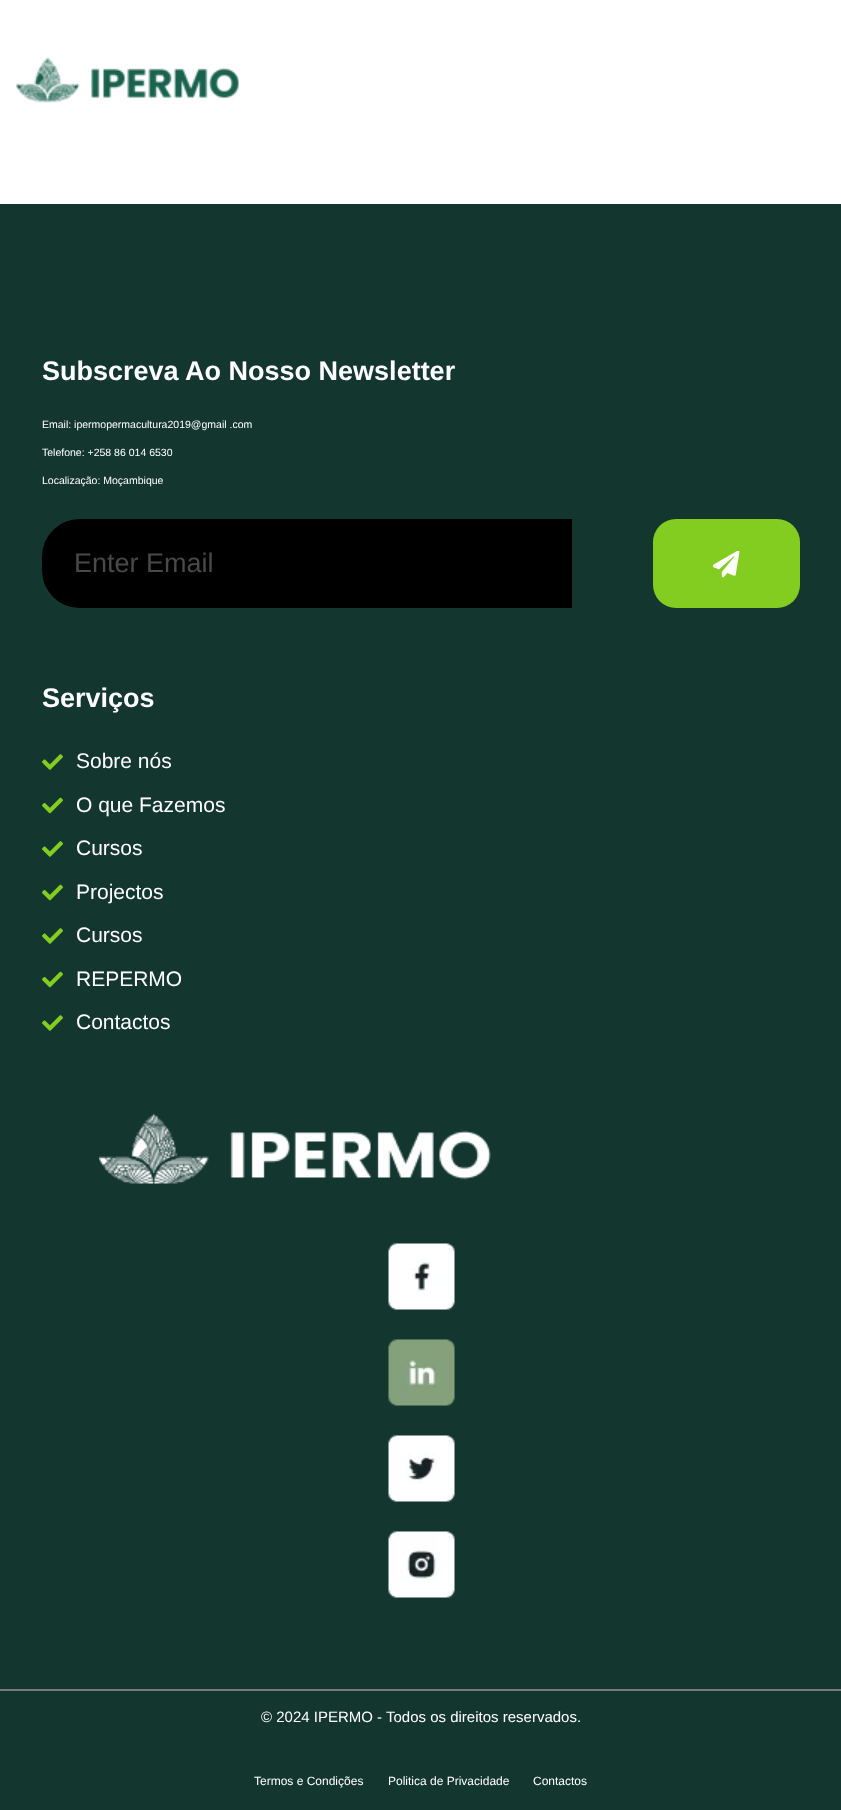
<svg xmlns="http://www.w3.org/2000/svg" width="841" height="1810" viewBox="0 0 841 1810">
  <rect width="100%" height="100%" fill="#fff"/>
  <image x="16" y="57" width="223" height="46" href="img/1.png"/>
  <path d="M0 204h841v1485H0z" fill="#13362f"/>
  <path d="M80 520H571V607H80C59.5 607 43 590.5 43 570V557C43 536.5 59.5 520 80 520Z" fill="#000" stroke="#000" stroke-width="2"/>
  <rect x="653" y="519" width="147" height="89" rx="23" fill="#83cd20"/>
  <image x="713" y="551" width="27" height="27" href="img/2.png"/>
  <image x="42" y="754" width="21" height="16" href="img/3.png"/>
  <image x="42" y="797" width="21" height="17" href="img/4.png"/>
  <image x="42" y="841" width="21" height="16" href="img/3.png"/>
  <image x="42" y="884" width="21" height="17" href="img/4.png"/>
  <image x="42" y="928" width="21" height="16" href="img/3.png"/>
  <image x="42" y="971" width="21" height="17" href="img/4.png"/>
  <image x="42" y="1015" width="21" height="16" href="img/3.png"/>
  <image x="99" y="1114" width="392" height="70" href="img/5.png"/>
  <image x="388" y="1243" width="67" height="67" href="img/6.png"/>
  <image x="388" y="1339" width="67" height="67" href="img/7.png"/>
  <image x="388" y="1435" width="67" height="67" href="img/8.png"/>
  <image x="388" y="1531" width="67" height="67" href="img/9.png"/>
  <path d="M0 1691h841v119H0z" fill="#13362f"/>
  <path d="M0 1689h841v2H0z" fill="#7a7a7a"/>
  <text x="42" y="380" font-family="Liberation Sans" font-size="27" font-weight="bold" fill="#fff">Subscreva Ao Nosso Newsletter</text>
  <g font-family="Liberation Sans" font-size="10.5" fill="#fff">
    <text x="42" y="428">Email: ipermopermacultura2019@gmail .com</text>
    <text x="42" y="456">Telefone: +258 86 014 6530</text>
    <text x="42" y="484">Localização: Moçambique</text>
  </g>
  <text x="74" y="572" font-family="Liberation Sans" font-size="27" fill="#494949">Enter Email</text>
  <text x="42" y="707" font-family="Liberation Sans" font-size="27" font-weight="bold" fill="#fff">Serviços</text>
  <g font-family="Liberation Sans" font-size="21" fill="#fff">
    <text x="76" y="768">Sobre nós</text>
    <text x="76" y="812">O que Fazemos</text>
    <text x="76" y="855">Cursos</text>
    <text x="76" y="899">Projectos</text>
    <text x="76" y="942">Cursos</text>
    <text x="76" y="986">REPERMO</text>
    <text x="76" y="1029">Contactos</text>
  </g>
  <text x="261" y="1722" font-family="Liberation Sans" font-size="15" fill="#fff">© 2024 IPERMO - Todos os direitos reservados.</text>
  <g font-family="Liberation Sans" font-size="12" fill="#fff">
    <text x="254" y="1785">Termos e Condições</text>
    <text x="388" y="1785">Politica de Privacidade</text>
    <text x="533" y="1785">Contactos</text>
  </g>
</svg>
